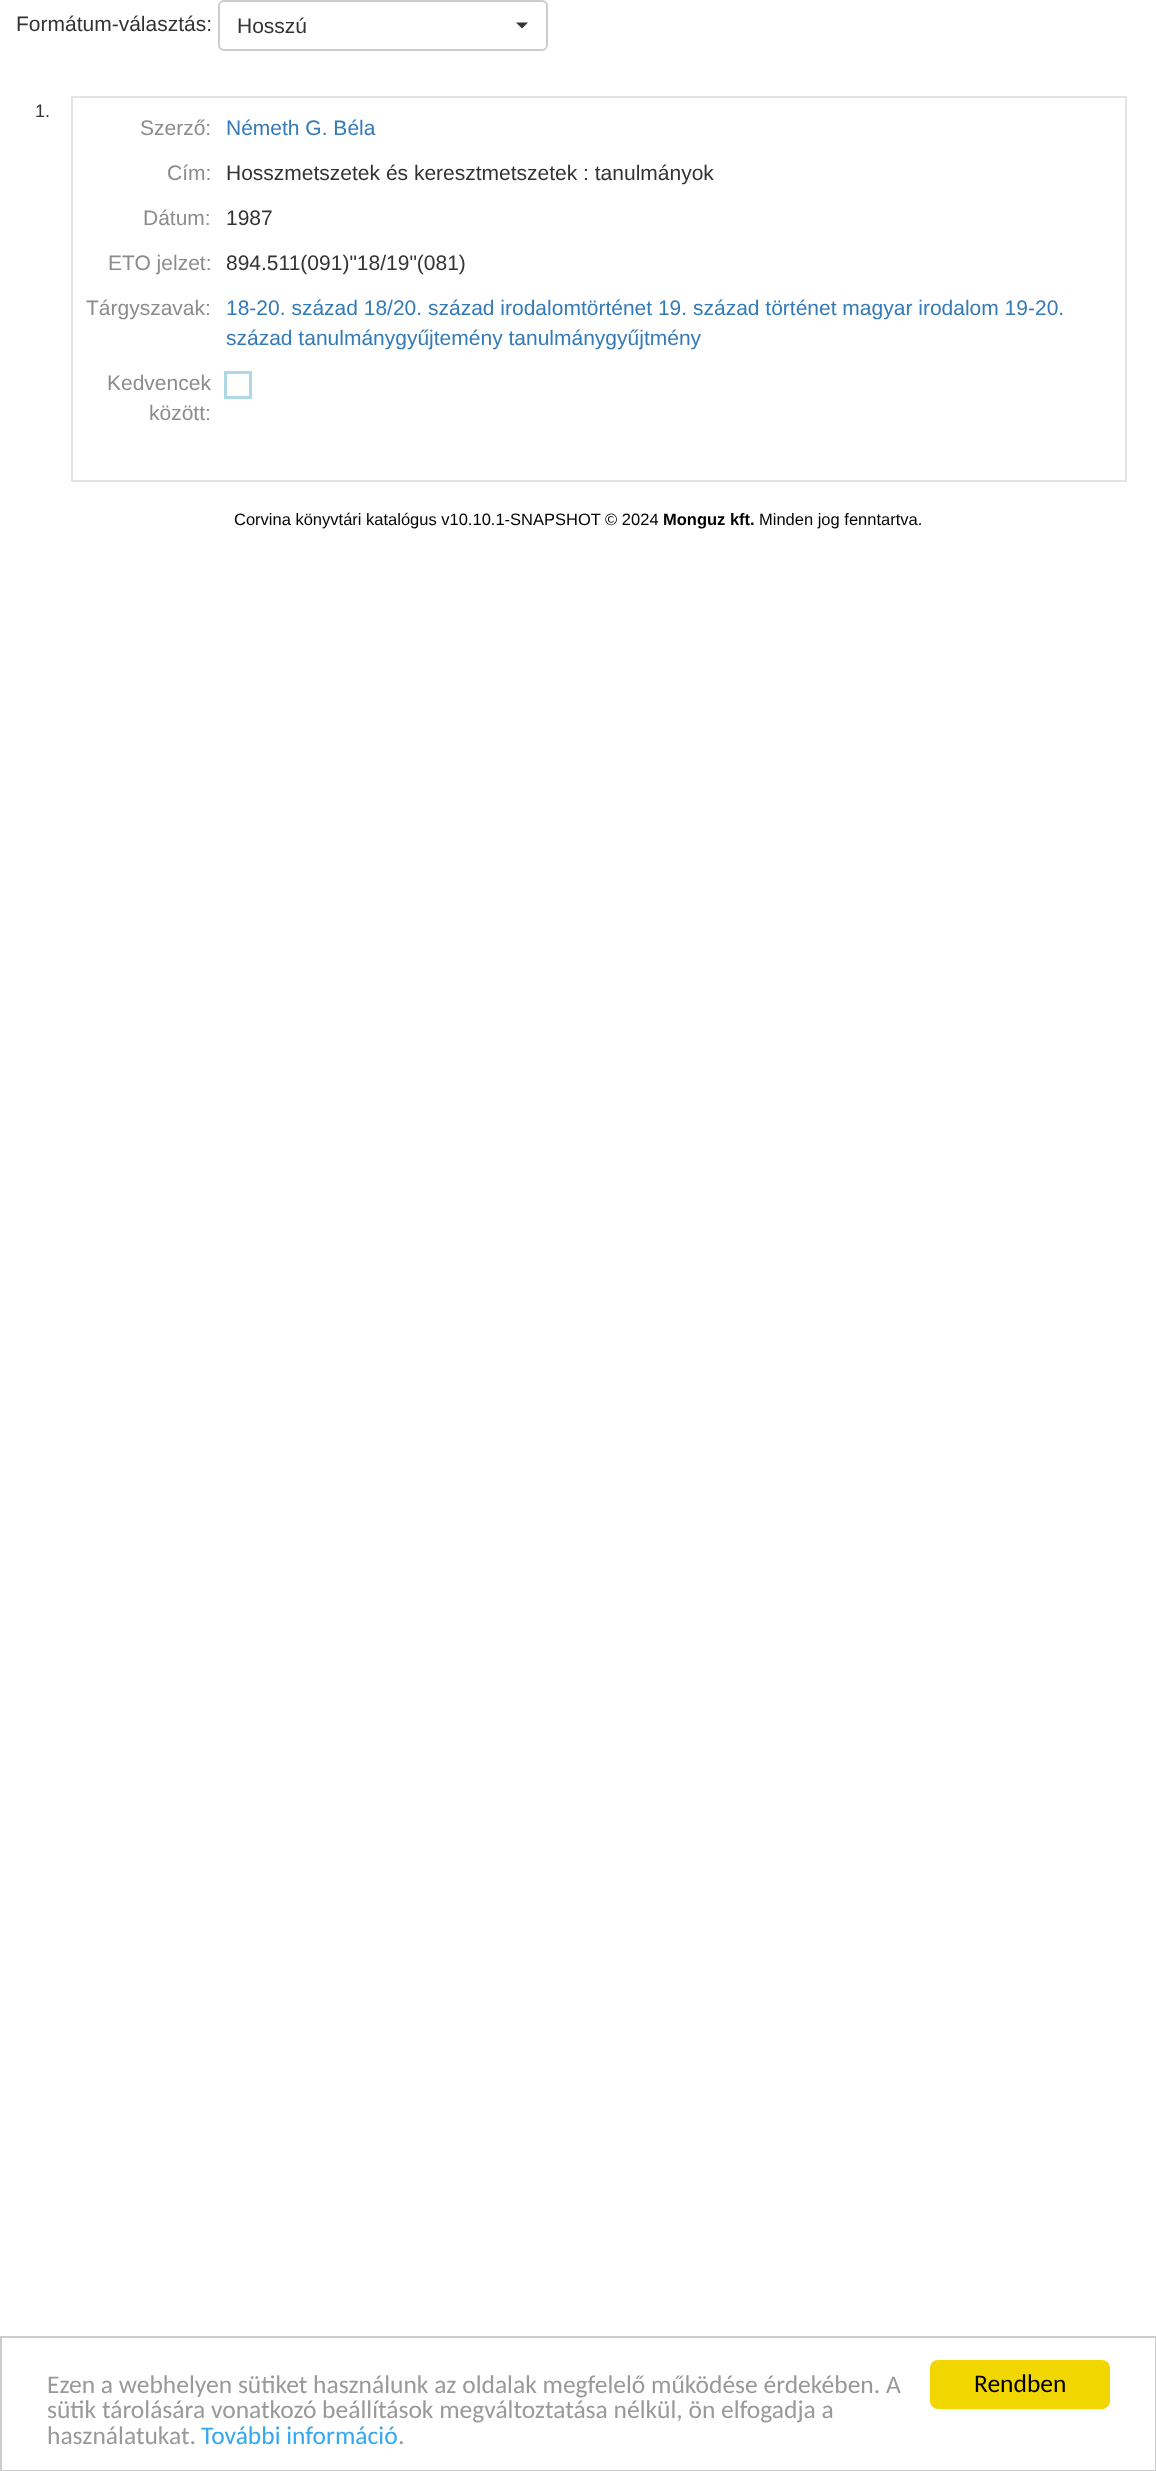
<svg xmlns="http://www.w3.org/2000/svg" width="1156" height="2471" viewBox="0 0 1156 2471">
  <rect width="100%" height="100%" fill="#fff"/>
  <rect x="219" y="1" width="328" height="49" rx="5" fill="none" stroke="#ccc" stroke-width="2"/>
  <path d="M516 22.5H528L522 28.5Z" fill="#333"/>
  <path d="M71 96h1056v2H71z" fill="#e3e3e3"/>
  <path d="M1125 96h2v386H1125z" fill="#e3e3e3"/>
  <path d="M71 480h1056v2H71z" fill="#e3e3e3"/>
  <path d="M71 96h2v386H71z" fill="#e3e3e3"/>
  <path d="M225.5 372.5h25v25H225.5z" fill="none" stroke="#add8e6" stroke-width="3"/>
  <path d="M1 2337h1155v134H1z" fill="none" stroke="#ccc" stroke-width="2"/>
  <rect x="930" y="2360" width="180" height="49" rx="8" fill="#f1d600"/>
  <g font-family="Liberation Sans" font-size="21" fill="#333">
    <text x="16" y="31">Formátum-választás:</text>
    <text x="237" y="33">Hosszú</text>
  </g>
  <text x="35" y="117" font-family="Liberation Sans" font-size="18" fill="#333">1.</text>
  <text x="140" y="135" font-family="Liberation Sans" font-size="21" fill="#8c8c8c">Szerző:</text>
  <text x="226" y="135" font-family="Liberation Sans" font-size="21" fill="#337ab7">Németh G. Béla</text>
  <text x="167" y="180" font-family="Liberation Sans" font-size="21" fill="#8c8c8c">Cím:</text>
  <text x="226" y="180" font-family="Liberation Sans" font-size="21" fill="#333">Hosszmetszetek és keresztmetszetek : tanulmányok</text>
  <text x="143" y="225" font-family="Liberation Sans" font-size="21" fill="#8c8c8c">Dátum:</text>
  <text x="226" y="225" font-family="Liberation Sans" font-size="21" fill="#333">1987</text>
  <text x="108" y="270" font-family="Liberation Sans" font-size="21" fill="#8c8c8c">ETO jelzet:</text>
  <text x="226" y="270" font-family="Liberation Sans" font-size="21" fill="#333">894.511(091)"18/19"(081)</text>
  <text x="86" y="315" font-family="Liberation Sans" font-size="21" fill="#8c8c8c">Tárgyszavak:</text>
  <g font-family="Liberation Sans" font-size="21" fill="#337ab7">
    <text x="226" y="315">18-20. század 18/20. század irodalomtörténet 19. század történet magyar irodalom 19-20.</text>
    <text x="226" y="345">század tanulmánygyűjtemény tanulmánygyűjtmény</text>
  </g>
  <g font-family="Liberation Sans" font-size="21" fill="#8c8c8c">
    <text x="107" y="390">Kedvencek</text>
    <text x="149" y="420">között:</text>
  </g>
  <text x="234" y="525" font-family="Liberation Sans" font-size="16.5" fill="#000">Corvina könyvtári katalógus v10.10.1-SNAPSHOT © 2024</text>
  <text x="663" y="525" font-family="Liberation Sans" font-size="16.5" font-weight="bold" fill="#000">Monguz kft.</text>
  <text x="759" y="525" font-family="Liberation Sans" font-size="16.5" fill="#000">Minden jog fenntartva.</text>
  <g font-family="Carlito" font-size="25.5" fill="#999">
    <text x="47" y="2393">Ezen a webhelyen sütiket használunk az oldalak megfelelő működése érdekében. A</text>
    <text x="47" y="2418">sütik tárolására vonatkozó beállítások megváltoztatása nélkül, ön elfogadja a</text>
    <text x="47" y="2444">használatukat.</text>
  </g>
  <text x="201" y="2444" font-family="Carlito" font-size="25.5" fill="#31a8f0">További információ</text>
  <text x="398" y="2444" font-family="Carlito" font-size="25.5" fill="#999">.</text>
  <text x="974" y="2392" font-family="Carlito" font-size="25.5" fill="#000">Rendben</text>
</svg>
